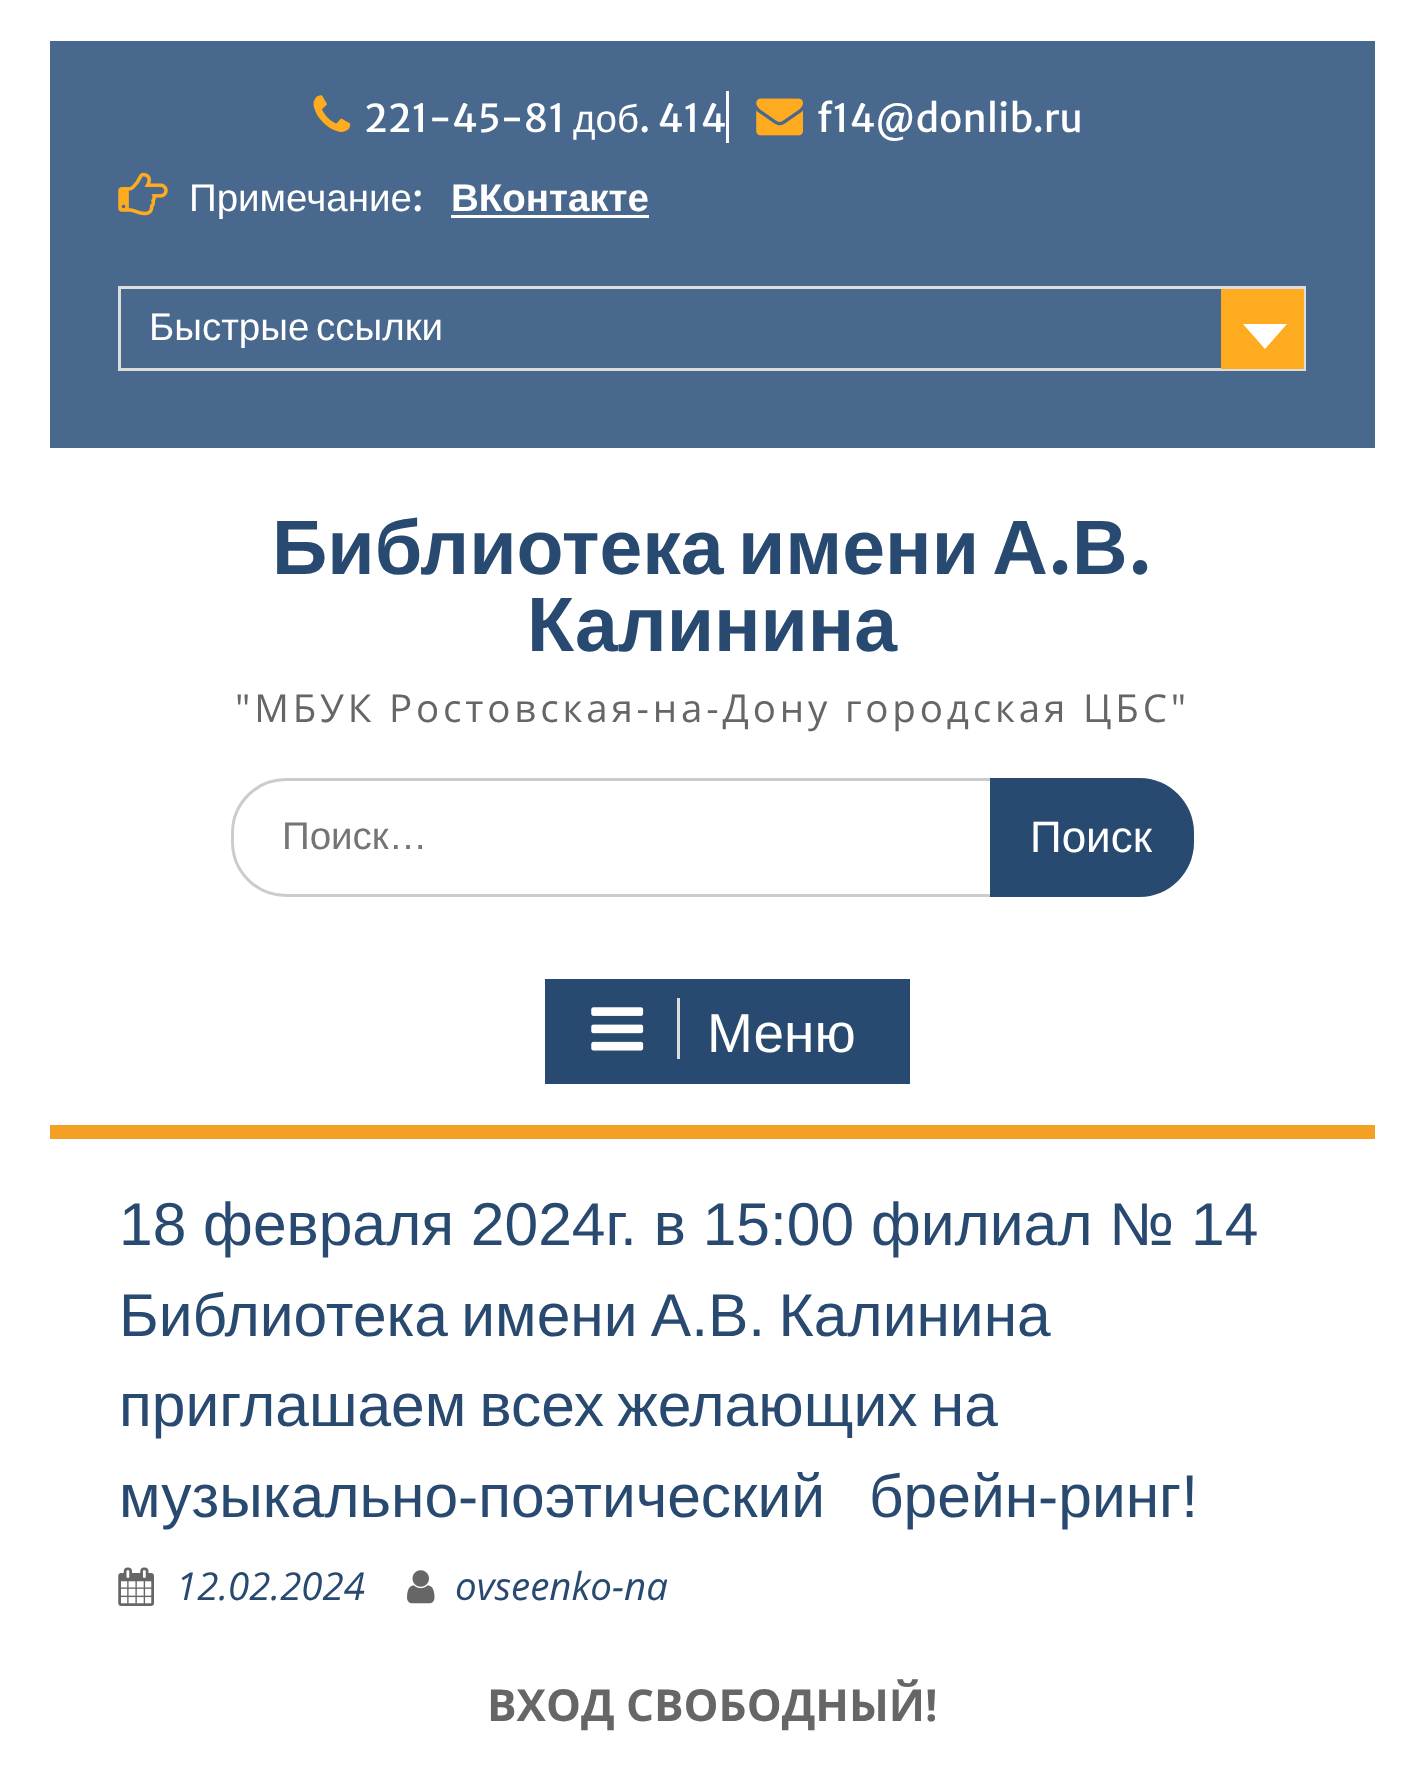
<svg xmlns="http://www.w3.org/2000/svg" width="1423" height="1771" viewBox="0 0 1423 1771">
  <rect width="100%" height="100%" fill="#fff"/>
  <path d="M50 41h1325v407H50z" fill="#49688e"/>
  <image x="313" y="95" width="38" height="37" href="img/1.png"/>
  <path d="M726 91h3v52H726z" fill="#fff"/>
  <image x="756" y="98" width="47" height="38" href="img/2.png"/>
  <image x="118" y="172" width="50" height="44" href="img/3.png"/>
  <path d="M451 215h198v3H451z" fill="#fff"/>
  <path d="M119.5 287.5h1185v82H119.5z" fill="none" stroke="#ddd" stroke-width="3"/>
  <path d="M1221 289h83v80H1221z" fill="#ffab1f"/>
  <path d="M1243 324H1287L1265 349Z" fill="#fff"/>
  <rect x="232.5" y="779.5" width="960" height="116" rx="53.5" fill="none" stroke="#ccc" stroke-width="3"/>
  <path d="M990 778H1139C1169.5 778 1194 802.5 1194 833V842C1194 872.5 1169.5 897 1139 897H990Z" fill="#294a70"/>
  <path d="M50 1125h1325v14H50z" fill="#f4a024"/>
  <path d="M545 979h365v105H545z" fill="#294a70"/>
  <path d="M677 998h3v61H677z" fill="#ddd"/>
  <image x="591" y="1007" width="53" height="44" href="img/4.png"/>
  <image x="118" y="1567" width="36" height="39" href="img/5.png"/>
  <image x="407" y="1570" width="28" height="34" href="img/6.png"/>
  <text x="364" y="132" font-family="Merriweather Sans" font-size="38.5" fill="#fff">221-45-81</text>
  <text x="573" y="132" font-family="Liberation Sans" font-size="38.5" fill="#fff">доб</text>
  <g font-family="Merriweather Sans" font-size="38.5" fill="#fff">
    <text x="639" y="132">. 414</text>
    <text x="817" y="132">f14@donlib.ru</text>
  </g>
  <text x="189" y="211" font-family="Liberation Sans" font-size="38.5" fill="#fff">Примечание</text>
  <text x="412" y="211" font-family="Merriweather Sans" font-size="38.5" fill="#fff">:</text>
  <text x="451" y="211" font-family="Liberation Sans" font-size="38.5" font-weight="bold" fill="#fff">ВКонтакте</text>
  <text x="149" y="340" word-spacing="-4" font-family="Liberation Sans" font-size="38.5" fill="#fff">Быстрые ссылки</text>
  <g font-family="Liberation Sans" font-size="77" font-weight="bold" fill="#294a70">
    <text x="272" y="574">Библиотека</text>
    <text x="738" y="574" word-spacing="-8">имени А</text>
  </g>
  <text x="1048" y="574" font-family="Merriweather Sans" font-size="77" font-weight="bold" fill="#294a70">.</text>
  <text x="1072" y="574" font-family="Liberation Sans" font-size="77" font-weight="bold" fill="#294a70">В</text>
  <text x="1128" y="574" font-family="Merriweather Sans" font-size="77" font-weight="bold" fill="#294a70">.</text>
  <text x="527" y="651" font-family="Liberation Sans" font-size="77" font-weight="bold" fill="#294a70">Калинина</text>
  <text x="235" y="722" font-family="Open Sans" font-size="38.5" letter-spacing="3.85" fill="#666">"МБУК Ростовская-на-Дону городская ЦБС"</text>
  <text x="282" y="849" font-family="Liberation Sans" font-size="38.5" fill="#757575">Поиск…</text>
  <text x="1030" y="852" font-family="Liberation Sans" font-size="44" fill="#fff">Поиск</text>
  <text x="707" y="1052" font-family="Liberation Sans" font-size="55" fill="#fff">Меню</text>
  <g font-family="Liberation Sans" font-size="60.5" fill="#294a70">
    <text x="119" y="1245">18 февраля 2024г. в 15:00 филиал № 14</text>
    <text x="119" y="1336" word-spacing="-3.5">Библиотека имени А.В. Калинина</text>
    <text x="119" y="1426" word-spacing="-3.5">приглашаем всех желающих на</text>
    <text x="119" y="1517" word-spacing="27">музыкально-поэтический брейн-ринг!</text>
  </g>
  <g font-family="Open Sans" font-size="38.5" font-style="italic" fill="#294a70">
    <text x="176" y="1600">12.02.2024</text>
    <text x="455" y="1600">ovseenko-na</text>
  </g>
  <text x="487" y="1721" font-family="Open Sans" font-size="44" font-weight="bold" fill="#666">ВХОД СВОБОДНЫЙ!</text>
</svg>
